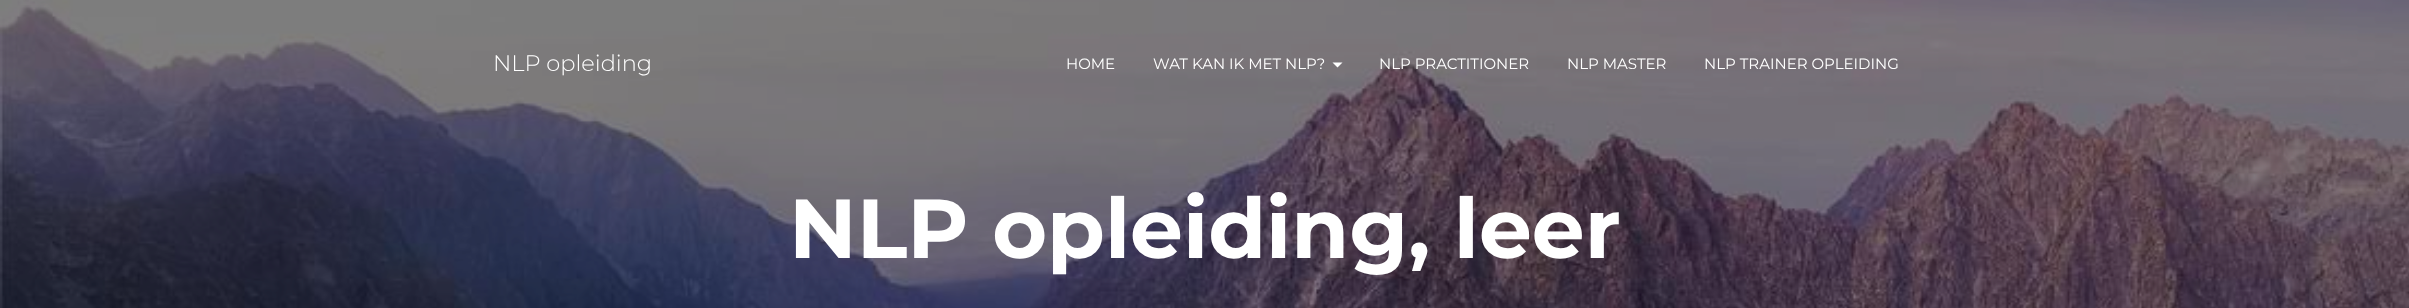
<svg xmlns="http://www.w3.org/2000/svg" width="2409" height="308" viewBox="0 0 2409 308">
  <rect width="100%" height="100%" fill="#fff"/>
  <image x="0" y="0" width="2409" height="308" href="img/1.png"/>
  <path d="M1332.5 62.5H1342.5L1337.5 67.5Z" fill="#fff"/>
  <text x="493" y="71" font-family="Montserrat" font-size="22.5" font-weight="300" fill="#fff">NLP opleiding</text>
  <g font-family="Montserrat" font-size="15" fill="#fff">
    <text x="1066" y="69">HOME</text>
    <text x="1153" y="69">WAT KAN IK MET NLP?</text>
    <text x="1379" y="69">NLP PRACTITIONER</text>
    <text x="1567" y="69">NLP MASTER</text>
    <text x="1704" y="69">NLP TRAINER OPLEIDING</text>
  </g>
  <text x="789" y="258" font-family="Montserrat" font-size="83.75" font-weight="bold" fill="#fff">NLP opleiding, leer</text>
</svg>
